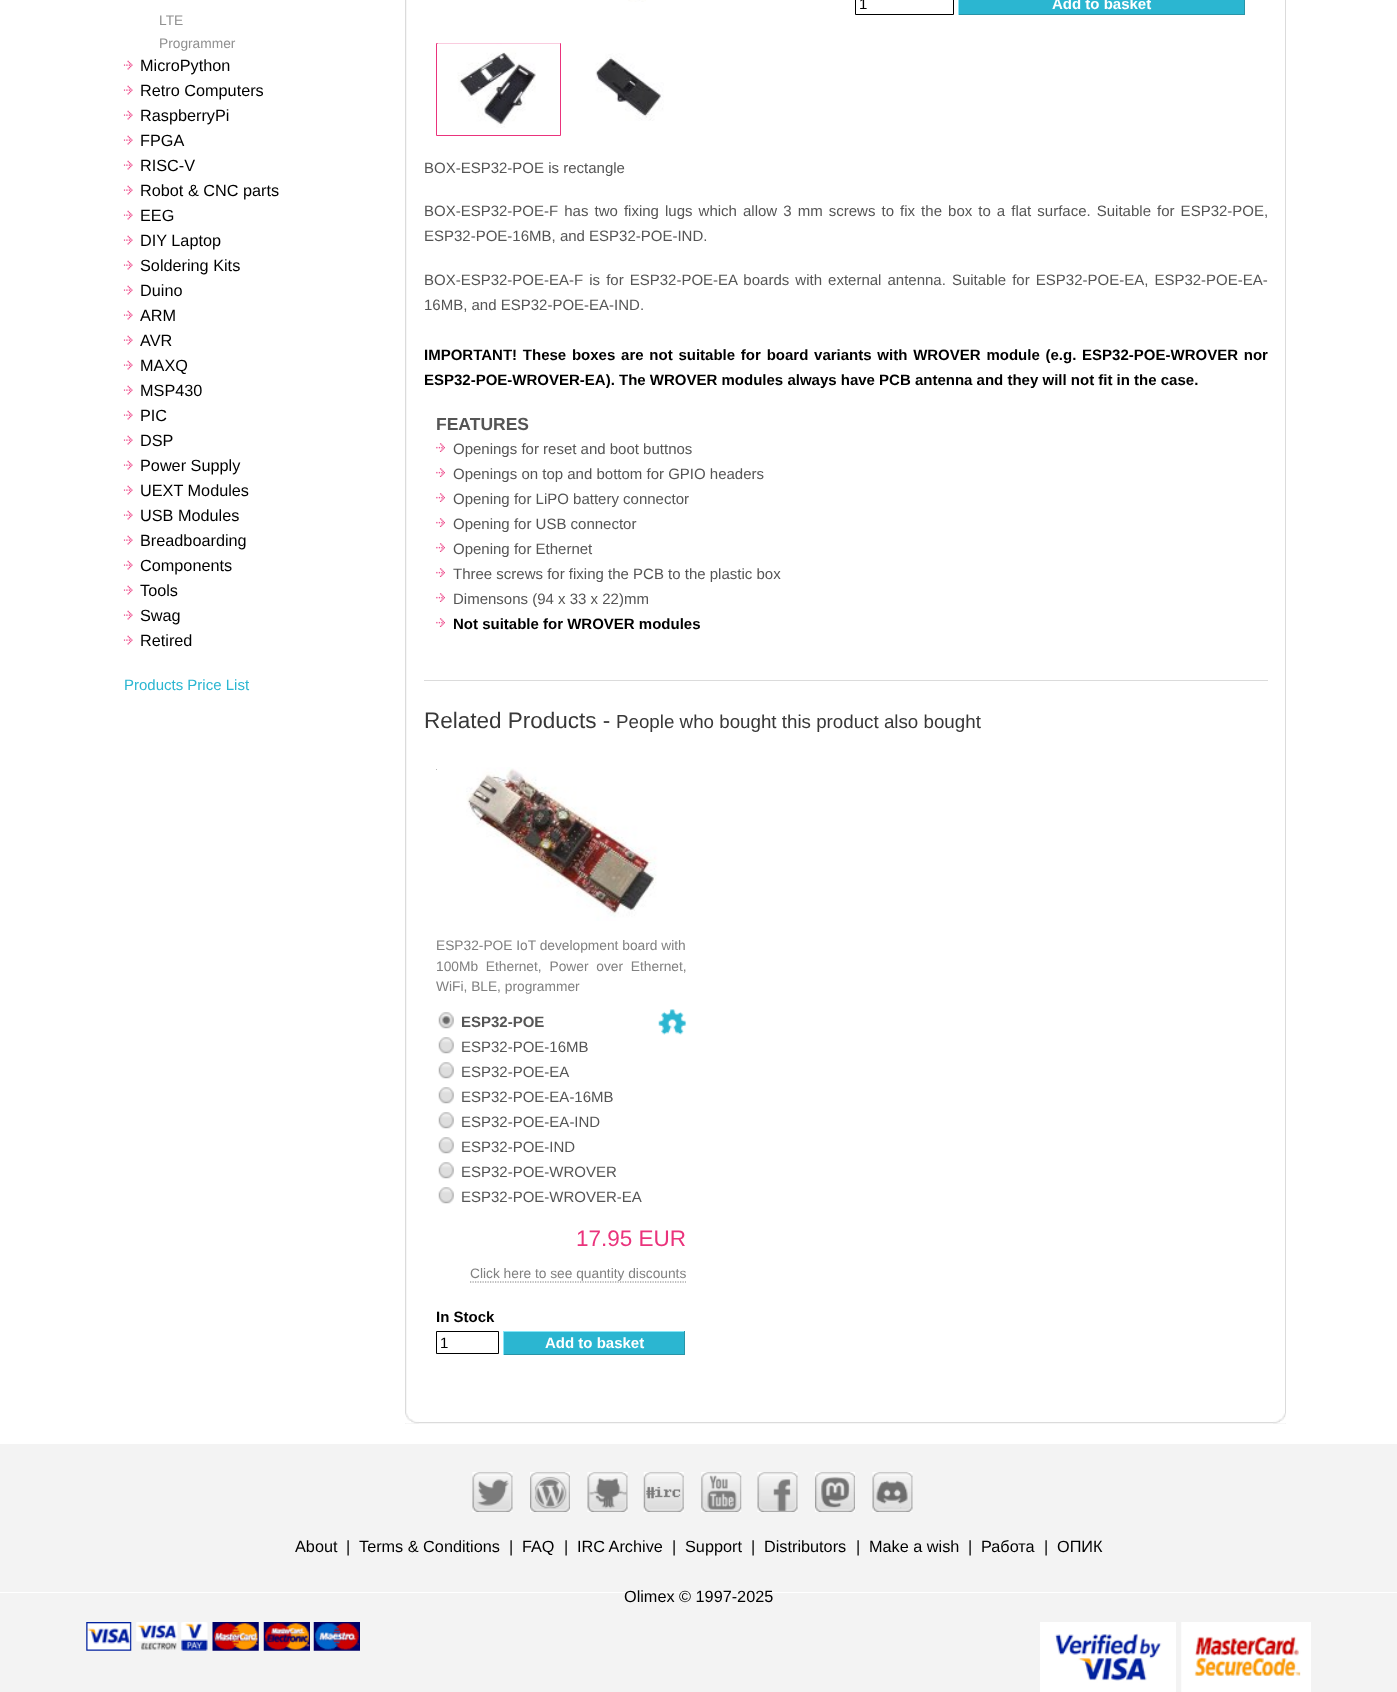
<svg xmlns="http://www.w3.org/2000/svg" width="1397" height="1692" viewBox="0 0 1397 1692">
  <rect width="100%" height="100%" fill="#f3f3f3"/>
  <path d="M0 0h1397v1593H0z" fill="#fff"/>
  <path d="M0 1444h1397v148H0z" fill="#f3f3f3"/>
  <image x="123" y="60" width="10" height="10" href="img/1.png"/>
  <image x="123" y="85" width="10" height="10" href="img/1.png"/>
  <image x="123" y="110" width="10" height="10" href="img/1.png"/>
  <image x="123" y="135" width="10" height="10" href="img/1.png"/>
  <image x="123" y="160" width="10" height="10" href="img/1.png"/>
  <image x="123" y="185" width="10" height="10" href="img/1.png"/>
  <image x="123" y="210" width="10" height="10" href="img/2.png"/>
  <image x="123" y="235" width="10" height="10" href="img/1.png"/>
  <image x="123" y="260" width="10" height="10" href="img/1.png"/>
  <image x="123" y="285" width="10" height="10" href="img/1.png"/>
  <image x="123" y="310" width="10" height="10" href="img/1.png"/>
  <image x="123" y="335" width="10" height="10" href="img/1.png"/>
  <image x="123" y="360" width="10" height="10" href="img/1.png"/>
  <image x="123" y="385" width="10" height="10" href="img/1.png"/>
  <image x="123" y="410" width="10" height="10" href="img/1.png"/>
  <image x="123" y="435" width="10" height="10" href="img/1.png"/>
  <image x="123" y="460" width="10" height="10" href="img/1.png"/>
  <image x="123" y="485" width="10" height="10" href="img/1.png"/>
  <image x="123" y="510" width="10" height="10" href="img/1.png"/>
  <image x="123" y="535" width="10" height="10" href="img/1.png"/>
  <image x="123" y="560" width="10" height="10" href="img/1.png"/>
  <image x="123" y="585" width="10" height="10" href="img/1.png"/>
  <image x="123" y="610" width="10" height="10" href="img/1.png"/>
  <image x="123" y="635" width="10" height="10" href="img/1.png"/>
  <image x="405" y="1422" width="881" height="2" href="img/3.png"/>
  <image x="1285" y="0" width="1" height="1424" href="img/4.png"/>
  <image x="405" y="0" width="2" height="1424" href="img/5.png"/>
  <image x="1273" y="1413" width="13" height="11" href="img/6.png"/>
  <image x="405" y="1413" width="14" height="11" href="img/7.png"/>
  <image x="628" y="0" width="18" height="2" href="img/8.png"/>
  <path d="M436.5 43.5h124v92H436.5z" fill="none" stroke="#ea337c"/>
  <image x="437" y="43" width="123" height="85" href="img/9.png"/>
  <image x="595" y="53" width="69" height="68" href="img/10.png"/>
  <path d="M855.5 -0.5h98v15H855.5z" fill="none" stroke="#000"/>
  <path d="M959 0h285v14H959z" fill="#2bb6d1"/>
  <path d="M1244 0h1v15H1244z" fill="#2894a7"/>
  <path d="M958 14h287v1H958z" fill="#2894a7"/>
  <path d="M958 0h1v15H958z" fill="#85e6f8"/>
  <image x="436" y="443" width="9" height="9" href="img/11.png"/>
  <image x="436" y="468" width="9" height="9" href="img/11.png"/>
  <image x="436" y="493" width="9" height="9" href="img/11.png"/>
  <image x="436" y="518" width="9" height="9" href="img/11.png"/>
  <image x="436" y="543" width="9" height="9" href="img/11.png"/>
  <image x="436" y="568" width="9" height="9" href="img/11.png"/>
  <image x="436" y="593" width="9" height="9" href="img/11.png"/>
  <image x="436" y="618" width="9" height="9" href="img/11.png"/>
  <path d="M424 680h844v1H424z" fill="#dbdbdb"/>
  <path d="M436 769.5H686" fill="none" stroke="#808080" stroke-width="1.2" stroke-dasharray="1.25 1.25"/>
  <image x="436" y="767" width="249" height="154" href="img/12.png"/>
  <image x="438" y="1012" width="16" height="17" href="img/13.png"/>
  <image x="438" y="1037" width="16" height="17" href="img/14.png"/>
  <image x="438" y="1062" width="16" height="17" href="img/14.png"/>
  <image x="438" y="1087" width="16" height="17" href="img/14.png"/>
  <image x="438" y="1112" width="16" height="17" href="img/14.png"/>
  <image x="438" y="1137" width="16" height="17" href="img/14.png"/>
  <image x="438" y="1162" width="16" height="17" href="img/14.png"/>
  <image x="438" y="1187" width="16" height="17" href="img/14.png"/>
  <image x="658" y="1009" width="29" height="26" href="img/15.png"/>
  <path d="M470 1282H686" fill="none" stroke="#808080" stroke-width="1.2" stroke-dasharray="1.25 1.25"/>
  <path d="M436.5 1331.5h62v22H436.5z" fill="none" stroke="#000"/>
  <path d="M504 1332h180v22H504z" fill="#2bb6d1"/>
  <path d="M503 1331h182v1H503z" fill="#85e6f8"/>
  <path d="M684 1331h1v24H684z" fill="#2894a7"/>
  <path d="M503 1354h182v1H503z" fill="#2894a7"/>
  <path d="M503 1331h1v24H503z" fill="#85e6f8"/>
  <image x="472" y="1472" width="41" height="40" href="img/16.png"/>
  <image x="530" y="1472" width="40" height="40" href="img/17.png"/>
  <image x="587" y="1472" width="41" height="40" href="img/18.png"/>
  <image x="643" y="1472" width="41" height="40" href="img/19.png"/>
  <image x="701" y="1472" width="41" height="40" href="img/20.png"/>
  <image x="757" y="1472" width="41" height="40" href="img/21.png"/>
  <image x="815" y="1472" width="40" height="40" href="img/22.png"/>
  <image x="872" y="1472" width="41" height="40" href="img/23.png"/>
  <image x="86" y="1622" width="46" height="29" href="img/24.png"/>
  <image x="136" y="1622" width="42" height="28" href="img/25.png"/>
  <image x="181" y="1622" width="27" height="29" href="img/26.png"/>
  <image x="212" y="1622" width="47" height="29" href="img/27.png"/>
  <image x="263" y="1622" width="47" height="29" href="img/28.png"/>
  <image x="313" y="1622" width="47" height="29" href="img/29.png"/>
  <image x="1040" y="1622" width="136" height="70" href="img/30.png"/>
  <image x="1181" y="1622" width="130" height="70" href="img/31.png"/>
  <g font-family="Liberation Sans" font-size="13.75" fill="#909090">
    <text x="159" y="25">LTE</text>
    <text x="159" y="48">Programmer</text>
  </g>
  <g font-family="Liberation Sans" font-size="16.25" fill="#000">
    <text x="140" y="71">MicroPython</text>
    <text x="140" y="96">Retro Computers</text>
    <text x="140" y="121">RaspberryPi</text>
    <text x="140" y="146">FPGA</text>
    <text x="140" y="171">RISC-V</text>
    <text x="140" y="196">Robot &amp; CNC parts</text>
    <text x="140" y="221">EEG</text>
    <text x="140" y="246">DIY Laptop</text>
    <text x="140" y="271">Soldering Kits</text>
    <text x="140" y="296">Duino</text>
    <text x="140" y="321">ARM</text>
    <text x="140" y="346">AVR</text>
    <text x="140" y="371">MAXQ</text>
    <text x="140" y="396">MSP430</text>
    <text x="140" y="421">PIC</text>
    <text x="140" y="446">DSP</text>
    <text x="140" y="471">Power Supply</text>
    <text x="140" y="496">UEXT Modules</text>
    <text x="140" y="521">USB Modules</text>
    <text x="140" y="546">Breadboarding</text>
    <text x="140" y="571">Components</text>
    <text x="140" y="596">Tools</text>
    <text x="140" y="621">Swag</text>
    <text x="140" y="646">Retired</text>
  </g>
  <text x="124" y="690" font-family="Liberation Sans" font-size="15" fill="#2bb6d1">Products Price List</text>
  <text x="859" y="9" font-family="Liberation Sans" font-size="15" fill="#000">1</text>
  <text x="1052" y="9" font-family="Liberation Sans" font-size="15" font-weight="bold" fill="#fff">Add to basket</text>
  <g font-family="Liberation Sans" font-size="15" fill="#555">
    <text x="424" y="173">BOX-ESP32-POE is rectangle</text>
    <text x="424" y="216" word-spacing="1.9">BOX-ESP32-POE-F has two fixing lugs which allow 3 mm screws to fix the box to a flat surface. Suitable for ESP32-POE,</text>
    <text x="424" y="241">ESP32-POE-16MB, and ESP32-POE-IND.</text>
    <text x="424" y="285" word-spacing="1.9">BOX-ESP32-POE-EA-F is for ESP32-POE-EA boards with external antenna. Suitable for ESP32-POE-EA, ESP32-POE-EA-</text>
    <text x="424" y="310">16MB, and ESP32-POE-EA-IND.</text>
  </g>
  <g font-family="Liberation Sans" font-size="15" font-weight="bold" fill="#000">
    <text x="424" y="360" word-spacing="1.6">IMPORTANT! These boxes are not suitable for board variants with WROVER module (e.g. ESP32-POE-WROVER nor</text>
    <text x="424" y="385">ESP32-POE-WROVER-EA). The WROVER modules always have PCB antenna and they will not fit in the case.</text>
  </g>
  <text x="436" y="430" font-family="Liberation Sans" font-size="17.5" font-weight="bold" fill="#555">FEATURES</text>
  <g font-family="Liberation Sans" font-size="15" fill="#555">
    <text x="453" y="454">Openings for reset and boot buttnos</text>
    <text x="453" y="479">Openings on top and bottom for GPIO headers</text>
    <text x="453" y="504">Opening for LiPO battery connector</text>
    <text x="453" y="529">Opening for USB connector</text>
    <text x="453" y="554">Opening for Ethernet</text>
    <text x="453" y="579">Three screws for fixing the PCB to the plastic box</text>
    <text x="453" y="604">Dimensons (94 x 33 x 22)mm</text>
  </g>
  <text x="453" y="629" font-family="Liberation Sans" font-size="15" font-weight="bold" fill="#000">Not suitable for WROVER modules</text>
  <text x="424" y="728" font-family="Liberation Sans" font-size="22.5" fill="#383838">Related Products -</text>
  <text x="616" y="728" font-family="Liberation Sans" font-size="18.75" fill="#383838">People who bought this product also bought</text>
  <g font-family="Liberation Sans" font-size="13.75" fill="#808080">
    <text x="436" y="950">ESP32-POE IoT development board with</text>
    <text x="436" y="971" word-spacing="4">100Mb Ethernet, Power over Ethernet,</text>
    <text x="436" y="991">WiFi, BLE, programmer</text>
  </g>
  <text x="461" y="1027" font-family="Liberation Sans" font-size="15" font-weight="bold" fill="#555">ESP32-POE</text>
  <g font-family="Liberation Sans" font-size="15" fill="#555">
    <text x="461" y="1052">ESP32-POE-16MB</text>
    <text x="461" y="1077">ESP32-POE-EA</text>
    <text x="461" y="1102">ESP32-POE-EA-16MB</text>
    <text x="461" y="1127">ESP32-POE-EA-IND</text>
    <text x="461" y="1152">ESP32-POE-IND</text>
    <text x="461" y="1177">ESP32-POE-WROVER</text>
    <text x="461" y="1202">ESP32-POE-WROVER-EA</text>
  </g>
  <text x="576" y="1246" font-family="Liberation Sans" font-size="22.5" fill="#ea337c">17.95 EUR</text>
  <text x="470" y="1278" font-family="Liberation Sans" font-size="13.75" fill="#808080">Click here to see quantity discounts</text>
  <text x="436" y="1322" font-family="Liberation Sans" font-size="15" font-weight="bold" fill="#000">In Stock</text>
  <text x="440" y="1348" font-family="Liberation Sans" font-size="15" fill="#000">1</text>
  <text x="545" y="1348" font-family="Liberation Sans" font-size="15" font-weight="bold" fill="#fff">Add to basket</text>
  <g font-family="Liberation Sans" font-size="16.25" fill="#000">
    <text x="295" y="1552">About</text>
    <text x="346" y="1552">|</text>
    <text x="359" y="1552">Terms &amp; Conditions</text>
    <text x="509" y="1552">|</text>
    <text x="522" y="1552">FAQ</text>
    <text x="564" y="1552">|</text>
    <text x="577" y="1552">IRC Archive</text>
    <text x="672" y="1552">|</text>
    <text x="685" y="1552">Support</text>
    <text x="751" y="1552">|</text>
    <text x="764" y="1552">Distributors</text>
    <text x="856" y="1552">|</text>
    <text x="869" y="1552">Make a wish</text>
    <text x="968" y="1552">|</text>
    <text x="981" y="1552">Работа</text>
    <text x="1044" y="1552">|</text>
    <text x="1057" y="1552">ОПИК</text>
    <text x="624" y="1602">Olimex © 1997-2025</text>
  </g>
</svg>
